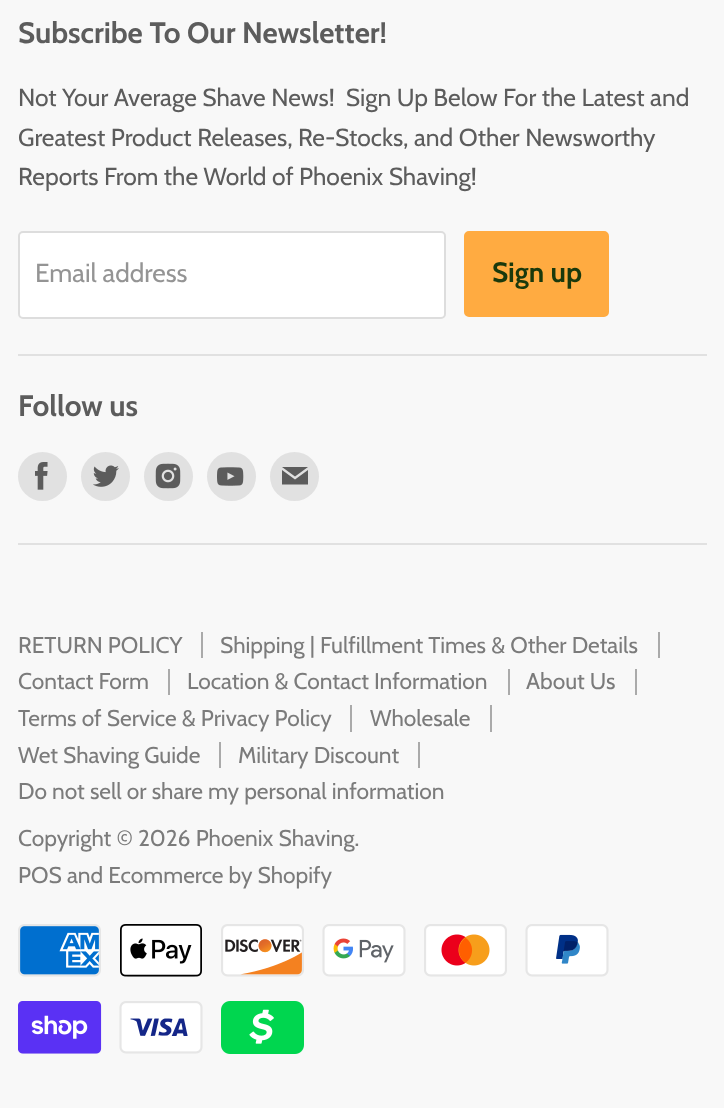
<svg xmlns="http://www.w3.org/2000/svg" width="724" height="1108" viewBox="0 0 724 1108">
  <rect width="100%" height="100%" fill="#f8f8f8"/>
  <path d="M18 354h689v2H18z" fill="#e1e1e1"/>
  <rect x="19" y="232" width="426" height="86" rx="4" fill="#fff" stroke="#ddd" stroke-width="2"/>
  <rect x="465" y="232" width="143" height="84" rx="4" fill="#ffab41" stroke="#ffab41" stroke-width="2"/>
  <path d="M18 543h689v2H18z" fill="#e1e1e1"/>
  <circle cx="42.5" cy="476.5" r="24.5" fill="#e1e1e1"/>
  <image x="35" y="462" width="13" height="28" href="img/1.png"/>
  <circle cx="105.5" cy="476.5" r="24.5" fill="#e1e1e1"/>
  <image x="93" y="465" width="26" height="22" href="img/2.png"/>
  <circle cx="168.5" cy="476.5" r="24.5" fill="#e1e1e1"/>
  <image x="155" y="463" width="26" height="26" href="img/3.png"/>
  <circle cx="231.5" cy="476.5" r="24.5" fill="#e1e1e1"/>
  <image x="217" y="467" width="27" height="19" href="img/4.png"/>
  <circle cx="294.5" cy="476.5" r="24.5" fill="#e1e1e1"/>
  <path d="M308 467H282L295 476.5ZM295 479.5L282 470V484.5H308V470Z" fill="#5c5c5c" fill-rule="evenodd"/>
  <path d="M201 632h2v26H201z" fill="#aaa"/>
  <path d="M658 632h2v26H658z" fill="#aaa"/>
  <path d="M168 669h2v26H168z" fill="#aaa"/>
  <path d="M508 669h2v26H508z" fill="#aaa"/>
  <path d="M635 669h2v26H635z" fill="#aaa"/>
  <path d="M350 705h2v27H350z" fill="#aaa"/>
  <path d="M490 705h2v27H490z" fill="#aaa"/>
  <path d="M219 742h2v26H219z" fill="#aaa"/>
  <path d="M418 742h2v26H418z" fill="#aaa"/>
  <image x="18" y="924" width="83" height="53" href="img/5.png"/>
  <image x="120" y="924" width="82" height="53" href="img/6.png"/>
  <image x="221" y="924" width="83" height="53" href="img/7.png"/>
  <image x="322" y="924" width="84" height="53" href="img/8.png"/>
  <image x="424" y="924" width="83" height="53" href="img/9.png"/>
  <image x="525" y="924" width="84" height="53" href="img/10.png"/>
  <image x="18" y="1001" width="84" height="53" href="img/11.png"/>
  <image x="119" y="1001" width="84" height="53" href="img/12.png"/>
  <image x="221" y="1001" width="83" height="53" href="img/13.png"/>
  <text x="18" y="43" font-family="Cabin" font-size="29.5" font-weight="bold" fill="#5c5c5c">Subscribe To Our Newsletter!</text>
  <g font-family="Cabin" font-size="24.6" fill="#5c5c5c">
    <text x="18" y="106" xml:space="preserve">Not Your Average Shave News!  Sign Up Below For the Latest and</text>
    <text x="18" y="146">Greatest Product Releases, Re-Stocks, and Other Newsworthy</text>
    <text x="18" y="185">Reports From the World of Phoenix Shaving!</text>
  </g>
  <text x="35" y="282" font-family="Cabin" font-size="26.25" fill="#949494">Email address</text>
  <text x="492" y="282" font-family="Cabin" font-size="28" font-weight="bold" fill="#1a390c">Sign up</text>
  <text x="18" y="416" font-family="Cabin" font-size="29.5" font-weight="bold" fill="#5c5c5c">Follow us</text>
  <g font-family="Cabin" font-size="22.75" fill="#7b7b7b">
    <text x="18" y="653">RETURN POLICY</text>
    <text x="220" y="653">Shipping | Fulfillment Times &amp; Other Details</text>
    <text x="18" y="689">Contact Form</text>
    <text x="187" y="689">Location &amp; Contact Information</text>
    <text x="526" y="689">About Us</text>
    <text x="18" y="726">Terms of Service &amp; Privacy Policy</text>
    <text x="370" y="726">Wholesale</text>
    <text x="18" y="763">Wet Shaving Guide</text>
    <text x="238" y="763">Military Discount</text>
    <text x="18" y="799">Do not sell or share my personal information</text>
    <text x="18" y="846">Copyright © 2026 Phoenix Shaving.</text>
    <text x="18" y="883">POS and Ecommerce by Shopify</text>
  </g>
</svg>
